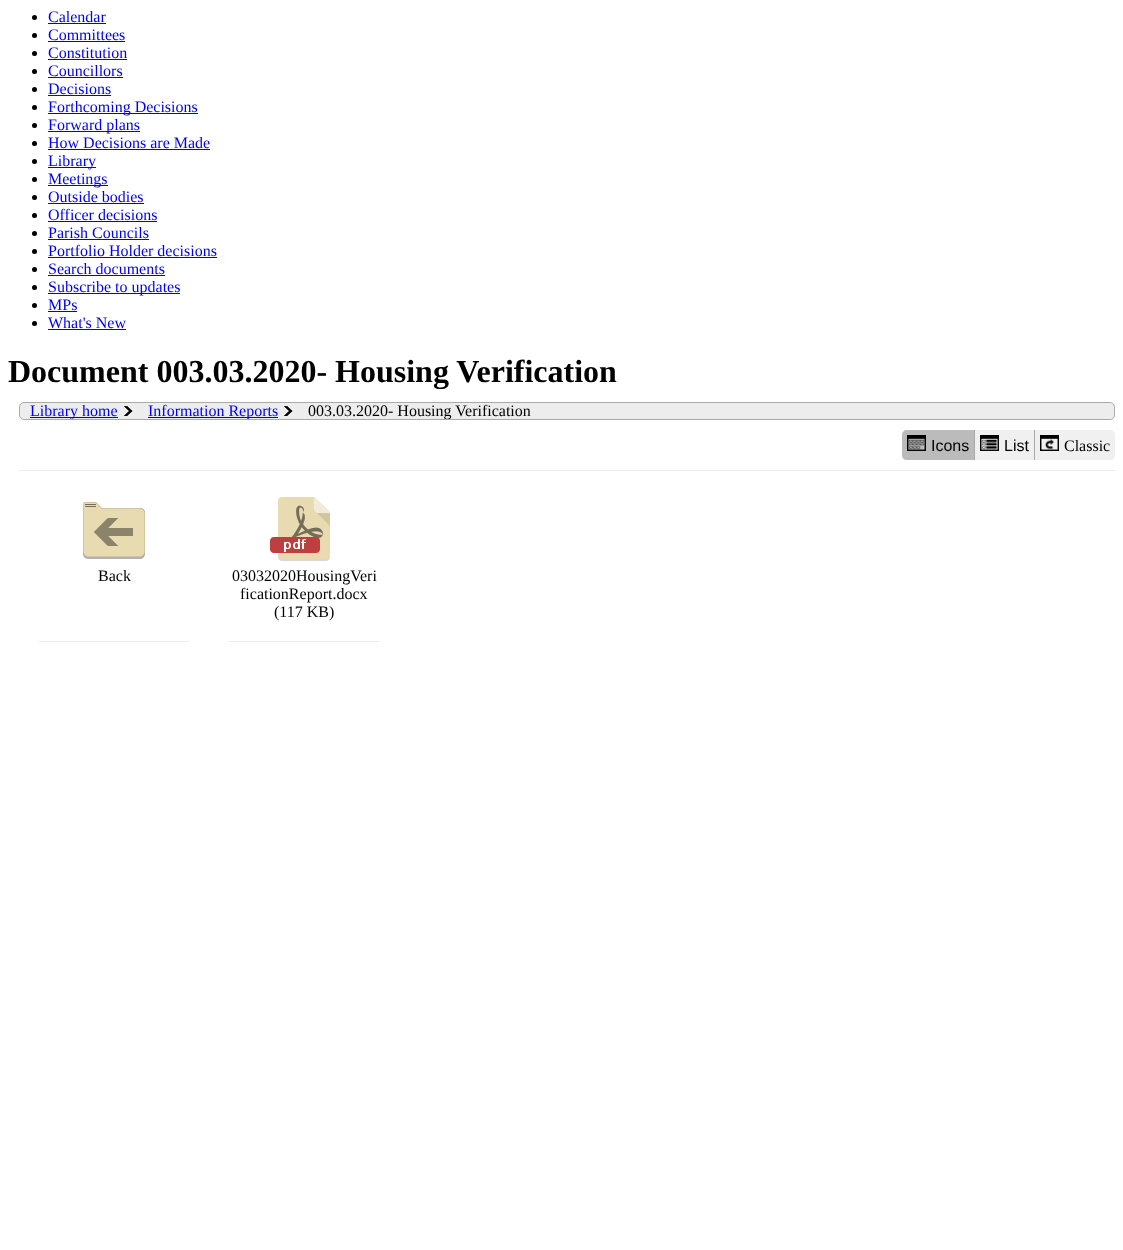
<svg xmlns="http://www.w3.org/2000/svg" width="1123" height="1250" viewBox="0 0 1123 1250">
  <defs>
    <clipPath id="clip1"><rect x="20" y="403" width="1094" height="16" rx="4"/></clipPath>
  </defs>
  <rect width="100%" height="100%" fill="#fff"/>
  <circle cx="34.5" cy="17.5" r="2.5" fill="#000"/>
  <path d="M48 23h58v1H48z" fill="#00e"/>
  <circle cx="34.5" cy="35.5" r="2.5" fill="#000"/>
  <path d="M48 41h77v1H48z" fill="#00e"/>
  <circle cx="34.5" cy="53.5" r="2.5" fill="#000"/>
  <path d="M48 59h79v1H48z" fill="#00e"/>
  <circle cx="34.5" cy="71.5" r="2.5" fill="#000"/>
  <path d="M48 77h75v1H48z" fill="#00e"/>
  <circle cx="34.5" cy="89.5" r="2.5" fill="#000"/>
  <path d="M48 95h63v1H48z" fill="#00e"/>
  <circle cx="34.5" cy="107.5" r="2.5" fill="#000"/>
  <path d="M48 113h150v1H48z" fill="#00e"/>
  <circle cx="34.5" cy="125.5" r="2.5" fill="#000"/>
  <path d="M48 131h92v1H48z" fill="#00e"/>
  <circle cx="34.5" cy="143.5" r="2.5" fill="#000"/>
  <path d="M48 149h162v1H48z" fill="#00e"/>
  <circle cx="34.5" cy="161.5" r="2.5" fill="#000"/>
  <path d="M48 167h48v1H48z" fill="#00e"/>
  <circle cx="34.5" cy="179.5" r="2.5" fill="#000"/>
  <path d="M48 185h60v1H48z" fill="#00e"/>
  <circle cx="34.5" cy="197.5" r="2.5" fill="#000"/>
  <path d="M48 203h96v1H48z" fill="#00e"/>
  <circle cx="34.5" cy="215.5" r="2.5" fill="#000"/>
  <path d="M48 221h109v1H48z" fill="#00e"/>
  <circle cx="34.5" cy="233.5" r="2.5" fill="#000"/>
  <path d="M48 239h101v1H48z" fill="#00e"/>
  <circle cx="34.5" cy="251.5" r="2.5" fill="#000"/>
  <path d="M48 257h169v1H48z" fill="#00e"/>
  <circle cx="34.5" cy="269.5" r="2.5" fill="#000"/>
  <path d="M48 275h117v1H48z" fill="#00e"/>
  <circle cx="34.5" cy="287.5" r="2.5" fill="#000"/>
  <path d="M48 293h132v1H48z" fill="#00e"/>
  <circle cx="34.5" cy="305.5" r="2.5" fill="#000"/>
  <path d="M48 311h29v1H48z" fill="#00e"/>
  <circle cx="34.5" cy="323.5" r="2.5" fill="#000"/>
  <path d="M48 329h78v1H48z" fill="#00e"/>
  <rect x="19.5" y="402.5" width="1095" height="17" rx="4.5" fill="#ededed" stroke="#aaa"/>
  <path d="M30 417h88v1H30z" fill="#00e"/>
  <image x="124" y="406" width="9" height="10" href="img/1.png"/>
  <path d="M148 417h130v1H148z" fill="#00e"/>
  <image x="284" y="406" width="9" height="10" href="img/1.png"/>
  <path d="M907 430H975V460H907C904 460 902 458 902 455V435C902 432 904 430 907 430Z" fill="#bbb"/>
  <path d="M974 430h1v30H974z" fill="#aaa"/>
  <image x="907" y="435" width="19" height="16" href="img/2.png"/>
  <path d="M975 430h59v30H975z" fill="#f0f0f0"/>
  <image x="980" y="435" width="19" height="16" href="img/3.png"/>
  <path d="M1034 430H1110C1113 430 1115 432 1115 435V455C1115 458 1113 460 1110 460H1034Z" fill="#f0f0f0"/>
  <path d="M1034 430h1v30H1034z" fill="#aaa"/>
  <image x="1040" y="435" width="19" height="16" href="img/4.png"/>
  <path d="M19 470h1096v1H19z" fill="#ededed"/>
  <path d="M39 641h150v1H39z" fill="#ededed"/>
  <image x="83" y="502" width="62" height="57" href="img/5.png"/>
  <path d="M229 641h150v1H229z" fill="#ededed"/>
  <image x="270" y="497" width="60" height="64" href="img/6.png"/>
  <g font-family="Liberation Serif" font-size="16" fill="#00e">
    <text x="48" y="22">Calendar</text>
    <text x="48" y="40">Committees</text>
    <text x="48" y="58">Constitution</text>
    <text x="48" y="76">Councillors</text>
    <text x="48" y="94">Decisions</text>
    <text x="48" y="112">Forthcoming Decisions</text>
    <text x="48" y="130">Forward plans</text>
    <text x="48" y="148">How Decisions are Made</text>
    <text x="48" y="166">Library</text>
    <text x="48" y="184">Meetings</text>
    <text x="48" y="202">Outside bodies</text>
    <text x="48" y="220">Officer decisions</text>
    <text x="48" y="238">Parish Councils</text>
    <text x="48" y="256">Portfolio Holder decisions</text>
    <text x="48" y="274">Search documents</text>
    <text x="48" y="292">Subscribe to updates</text>
    <text x="48" y="310">MPs</text>
    <text x="48" y="328">What's New</text>
  </g>
  <text x="8" y="382" font-family="Liberation Serif" font-size="32" font-weight="bold" fill="#000">Document 003.03.2020- Housing Verification</text>
  <g clip-path="url(#clip1)">
    <g font-family="Liberation Serif" font-size="16" fill="#00e">
      <text x="30" y="416">Library home</text>
      <text x="148" y="416">Information Reports</text>
    </g>
    <text x="308" y="416" font-family="Liberation Serif" font-size="16" fill="#000">003.03.2020- Housing Verification</text>
  </g>
  <g font-family="Liberation Sans" font-size="16" fill="#000">
    <text x="931" y="451">Icons</text>
    <text x="1004" y="451">List</text>
  </g>
  <g font-family="Liberation Serif" font-size="16" fill="#000">
    <text x="1064" y="451">Classic</text>
    <text x="98" y="581">Back</text>
    <text x="232" y="581">03032020HousingVeri</text>
    <text x="240" y="599">ficationReport.docx</text>
    <text x="274" y="617">(117 KB)</text>
  </g>
</svg>
